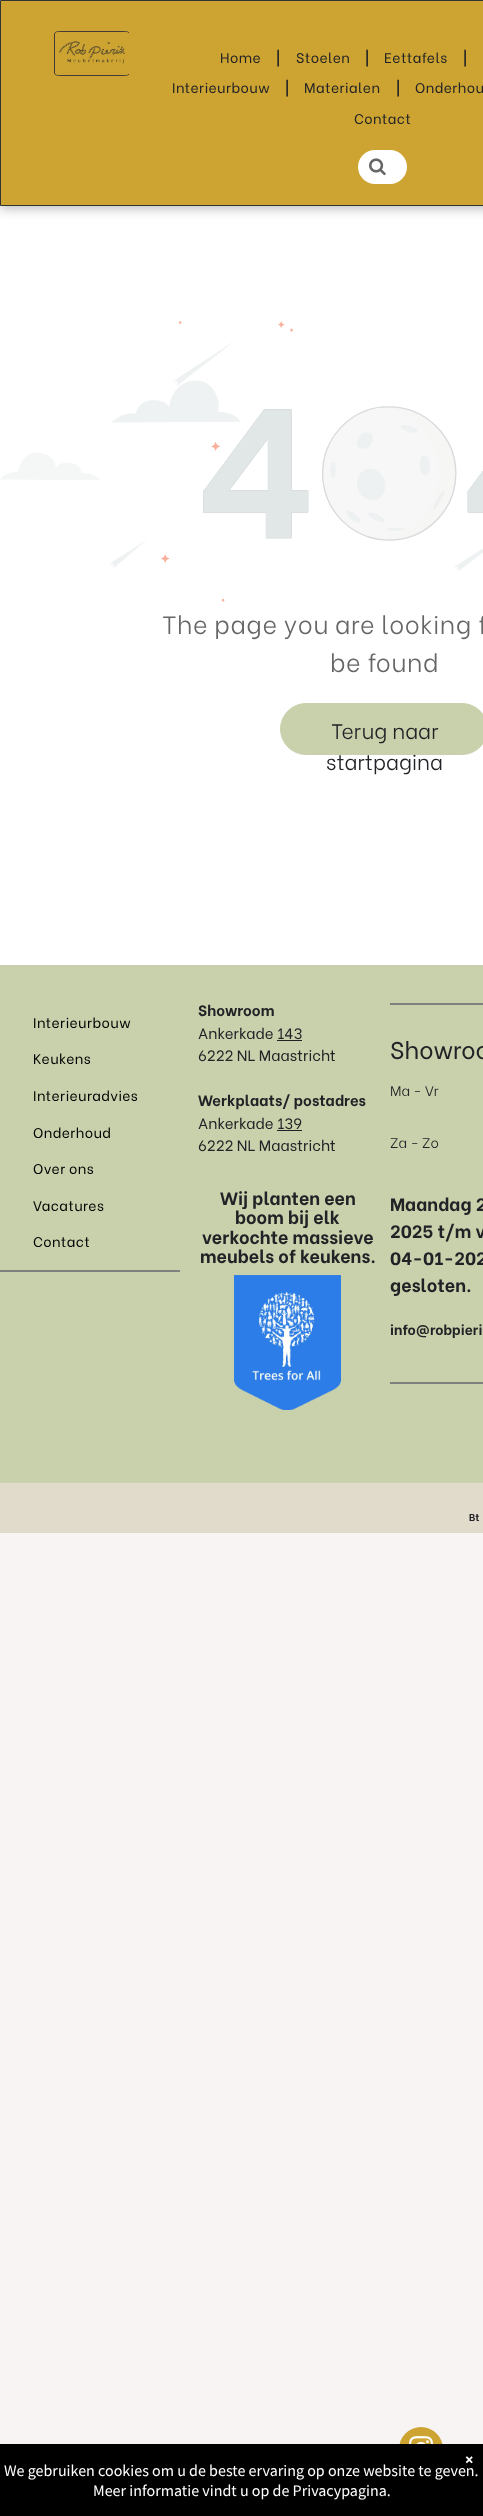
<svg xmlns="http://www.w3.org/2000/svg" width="483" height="2516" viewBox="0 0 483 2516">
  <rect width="100%" height="100%" fill="#f8f4f4"/>
  <path d="M0 206h483v759H0z" fill="#fff"/>
  <path d="M0 3h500v206H0z" fill="#00000040" filter="blur(5.5px)"/>
  <path d="M0.5 0.5h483v205H0.5z" fill="none" stroke="#333"/>
  <path d="M1 1h482v204H1z" fill="#cda432"/>
  <path d="M59.5 31.5H124.5C127.5 31.5 129.5 32.5 129.5 34V73C129.5 74.5 127.5 75.5 124.5 75.5H59.5C56.5 75.5 54.5 74.5 54.5 73V34C54.5 32.5 56.5 31.5 59.5 31.5Z" fill="none" stroke="#463939"/>
  <image x="55" y="32" width="74" height="43" href="img/1.png"/>
  <path d="M129 32h1v43H129z" fill="#cda432"/>
  <rect x="358" y="150" width="49" height="34" rx="17" fill="#fff"/>
  <image x="369" y="158" width="17" height="18" href="img/2.png"/>
  <image x="0" y="321" width="483" height="281" href="img/3.png"/>
  <rect x="280.5" y="703.5" width="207" height="51" rx="25.5" fill="#c9d1ac" stroke="#c9d1ac"/>
  <path d="M0 965h483v518H0z" fill="#c9d1ac"/>
  <path d="M0 1270h180v2H0z" fill="#808080"/>
  <path d="M277 1040h25v1H277z" fill="#212226"/>
  <path d="M277 1130h25v1H277z" fill="#212226"/>
  <image x="234" y="1275" width="107" height="135" href="img/4.png"/>
  <path d="M390 1003h93v2H390z" fill="#808080"/>
  <path d="M390 1382h93v2H390z" fill="#808080"/>
  <path d="M0 1483h483v50H0z" fill="#e1dbcc"/>
  <circle cx="421" cy="2449" r="22" fill="#cda432"/>
  <image x="409" y="2436" width="24" height="8" href="img/5.png"/>
  <path d="M0 2444h483v72H0z" fill="#000"/>
  <text x="220" y="63" font-family="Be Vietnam" font-size="14" letter-spacing="0.4" fill="#212226">Home</text>
  <text x="276" y="63" font-family="Be Vietnam" font-size="14" font-weight="bold" fill="#212226">|</text>
  <text x="296" y="63" font-family="Be Vietnam" font-size="14" letter-spacing="0.4" fill="#212226">Stoelen</text>
  <text x="365" y="63" font-family="Be Vietnam" font-size="14" font-weight="bold" fill="#212226">|</text>
  <text x="384" y="63" font-family="Be Vietnam" font-size="14" letter-spacing="0.4" fill="#212226">Eettafels</text>
  <text x="463" y="63" font-family="Be Vietnam" font-size="14" font-weight="bold" fill="#212226">|</text>
  <text x="172" y="93" font-family="Be Vietnam" font-size="14" letter-spacing="0.4" fill="#212226">Interieurbouw</text>
  <text x="285" y="93" font-family="Be Vietnam" font-size="14" font-weight="bold" fill="#212226">|</text>
  <text x="304" y="93" font-family="Be Vietnam" font-size="14" letter-spacing="0.4" fill="#212226">Materialen</text>
  <text x="396" y="93" font-family="Be Vietnam" font-size="14" font-weight="bold" fill="#212226">|</text>
  <g font-family="Be Vietnam" font-size="14" letter-spacing="0.4" fill="#212226">
    <text x="415" y="93">Onderhou</text>
    <text x="354" y="124">Contact</text>
  </g>
  <g font-family="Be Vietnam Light" font-size="25" font-weight="300" letter-spacing="0.5" fill="#666">
    <text x="162" y="634">The page you are looking f</text>
    <text x="330" y="672">be found</text>
  </g>
  <g font-family="Be Vietnam Light" font-size="21" font-weight="300" fill="#212226">
    <text x="331" y="739">Terug naar</text>
    <text x="326" y="770">startpagina</text>
  </g>
  <g font-family="Be Vietnam" font-size="14" letter-spacing="0.4" fill="#000">
    <text x="33" y="1028">Interieurbouw</text>
    <text x="33" y="1064">Keukens</text>
    <text x="33" y="1101">Interieuradvies</text>
    <text x="33" y="1138">Onderhoud</text>
    <text x="33" y="1174">Over ons</text>
    <text x="33" y="1211">Vacatures</text>
    <text x="33" y="1247">Contact</text>
  </g>
  <text x="198" y="1016" font-family="Be Vietnam" font-size="15" font-weight="bold" fill="#212226">Showroom</text>
  <g font-family="Be Vietnam" font-size="15" fill="#212226">
    <text x="198" y="1039">Ankerkade 143</text>
    <text x="198" y="1061">6222 NL Maastricht</text>
  </g>
  <text x="198" y="1106" font-family="Be Vietnam" font-size="15" font-weight="bold" fill="#212226">Werkplaats/ postadres</text>
  <g font-family="Be Vietnam" font-size="15" fill="#212226">
    <text x="198" y="1129">Ankerkade 139</text>
    <text x="198" y="1151">6222 NL Maastricht</text>
  </g>
  <g font-family="Be Vietnam" font-size="18" font-weight="bold" fill="#212226">
    <text x="220" y="1205">Wij planten een</text>
    <text x="235" y="1224">boom bij elk</text>
    <text x="202" y="1244">verkochte massieve</text>
    <text x="200" y="1263">meubels of keukens.</text>
  </g>
  <text x="390" y="1059" font-family="Be Vietnam" font-size="24" fill="#212226">Showroo</text>
  <g font-family="Be Vietnam Light" font-size="14" font-weight="300" fill="#212226">
    <text x="390" y="1096">Ma - Vr</text>
    <text x="390" y="1148">Za - Zo</text>
  </g>
  <g font-family="Be Vietnam" font-size="18" font-weight="bold" fill="#212226">
    <text x="390" y="1211">Maandag 2</text>
    <text x="390" y="1238">2025 t/m v</text>
    <text x="390" y="1265">04-01-202</text>
    <text x="390" y="1292">gesloten.</text>
  </g>
  <text x="390" y="1335" font-family="Be Vietnam" font-size="14" font-weight="bold" fill="#212226">info@robpieri</text>
  <text x="469" y="1521" font-family="Be Vietnam" font-size="10" font-weight="bold" fill="#212226">Bt</text>
  <text x="465" y="2465" font-family="Source Sans Pro" font-size="16" font-weight="bold" fill="#fff">×</text>
  <g font-family="Source Sans Pro" font-size="16" fill="#fff">
    <text x="4" y="2476">We gebruiken cookies om u de beste ervaring op onze website te geven.</text>
    <text x="93" y="2496">Meer informatie vindt u op de Privacypagina.</text>
  </g>
</svg>
